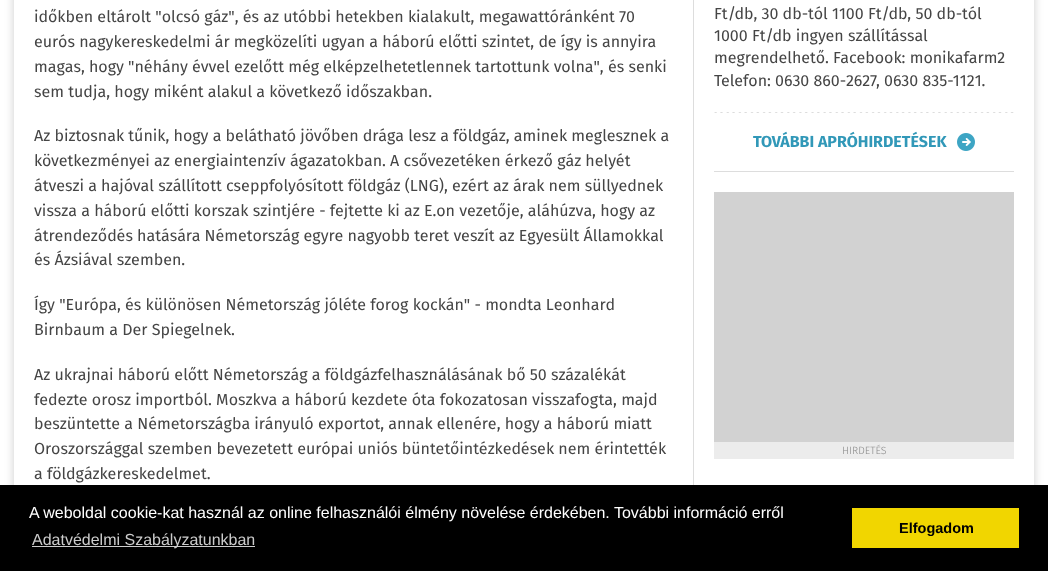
<svg xmlns="http://www.w3.org/2000/svg" width="1048" height="571" viewBox="0 0 1048 571">
  <defs>
    <clipPath id="clip1"><path d="M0 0H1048V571H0ZM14-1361H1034V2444H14Z" clip-rule="evenodd"/></clipPath>
  </defs>
  <rect width="100%" height="100%" fill="#fff"/>
  <g clip-path="url(#clip1)">
    <path d="M14 -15h1020v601H14z" fill="#00000033" filter="blur(5px)"/>
  </g>
  <path d="M693 0h1v485H693z" fill="#ddd"/>
  <image x="714" y="112" width="300" height="1" href="img/1.png"/>
  <path d="M714 171h300v1H714z" fill="#ddd"/>
  <image x="957" y="133" width="18" height="18" href="img/2.png"/>
  <path d="M714 192h300v250H714z" fill="#d2d2d2"/>
  <path d="M714 442h300v17H714z" fill="#ececec"/>
  <path d="M0 485h1048v86H0z" fill="#000"/>
  <path d="M32 546h223v1H32z" fill="#ccc"/>
  <path d="M852 508h167v40H852z" fill="#f1d600"/>
  <g font-family="Fira Sans" font-size="16" fill="#454545">
    <text x="34" y="22">időkben eltárolt "olcsó gáz", és az utóbbi hetekben kialakult, megawattóránként 70</text>
    <text x="34" y="47">eurós nagykereskedelmi ár megközelíti ugyan a háború előtti szintet, de így is annyira</text>
    <text x="34" y="72">magas, hogy "néhány évvel ezelőtt még elképzelhetetlennek tartottunk volna", és senki</text>
    <text x="34" y="97">sem tudja, hogy miként alakul a következő időszakban.</text>
    <text x="34" y="141">Az biztosnak tűnik, hogy a belátható jövőben drága lesz a földgáz, aminek meglesznek a</text>
    <text x="34" y="166">következményei az energiaintenzív ágazatokban. A csővezetéken érkező gáz helyét</text>
    <text x="34" y="191">átveszi a hajóval szállított cseppfolyósított földgáz (LNG), ezért az árak nem süllyednek</text>
    <text x="34" y="216">vissza a háború előtti korszak szintjére - fejtette ki az E.on vezetője, aláhúzva, hogy az</text>
    <text x="34" y="241">átrendeződés hatására Németország egyre nagyobb teret veszít az Egyesült Államokkal</text>
    <text x="34" y="265">és Ázsiával szemben.</text>
    <text x="34" y="310">Így "Európa, és különösen Németország jóléte forog kockán" - mondta Leonhard</text>
    <text x="34" y="335">Birnbaum a Der Spiegelnek.</text>
    <text x="34" y="380">Az ukrajnai háború előtt Németország a földgázfelhasználásának bő 50 százalékát</text>
    <text x="34" y="405">fedezte orosz importból. Moszkva a háború kezdete óta fokozatosan visszafogta, majd</text>
    <text x="34" y="429">beszüntette a Németországba irányuló exportot, annak ellenére, hogy a háború miatt</text>
    <text x="34" y="454">Oroszországgal szemben bevezetett európai uniós büntetőintézkedések nem érintették</text>
    <text x="34" y="479">a földgázkereskedelmet.</text>
    <text x="714" y="19">Ft/db, 30 db-tól 1100 Ft/db, 50 db-tól</text>
    <text x="714" y="41">1000 Ft/db ingyen szállítással</text>
    <text x="714" y="63">megrendelhető. Facebook: monikafarm2</text>
    <text x="714" y="86">Telefon: 0630 860-2627, 0630 835-1121.</text>
  </g>
  <text x="753" y="147" font-family="Fira Sans" font-size="16" font-weight="bold" fill="#3198b8">TOVÁBBI APRÓHIRDETÉSEK</text>
  <text x="842" y="454" font-family="Fira Sans" font-size="10.5" font-weight="300" fill="#8b8b8b">HIRDETÉS</text>
  <text x="29" y="518" font-family="Liberation Sans" font-size="16" fill="#fff">A weboldal cookie-kat használ az online felhasználói élmény növelése érdekében. További információ erről</text>
  <text x="32" y="545" font-family="Liberation Sans" font-size="16" fill="#ccc">Adatvédelmi Szabályzatunkban</text>
  <text x="899" y="533" font-family="Liberation Sans" font-size="14.5" font-weight="bold" fill="#000">Elfogadom</text>
</svg>
